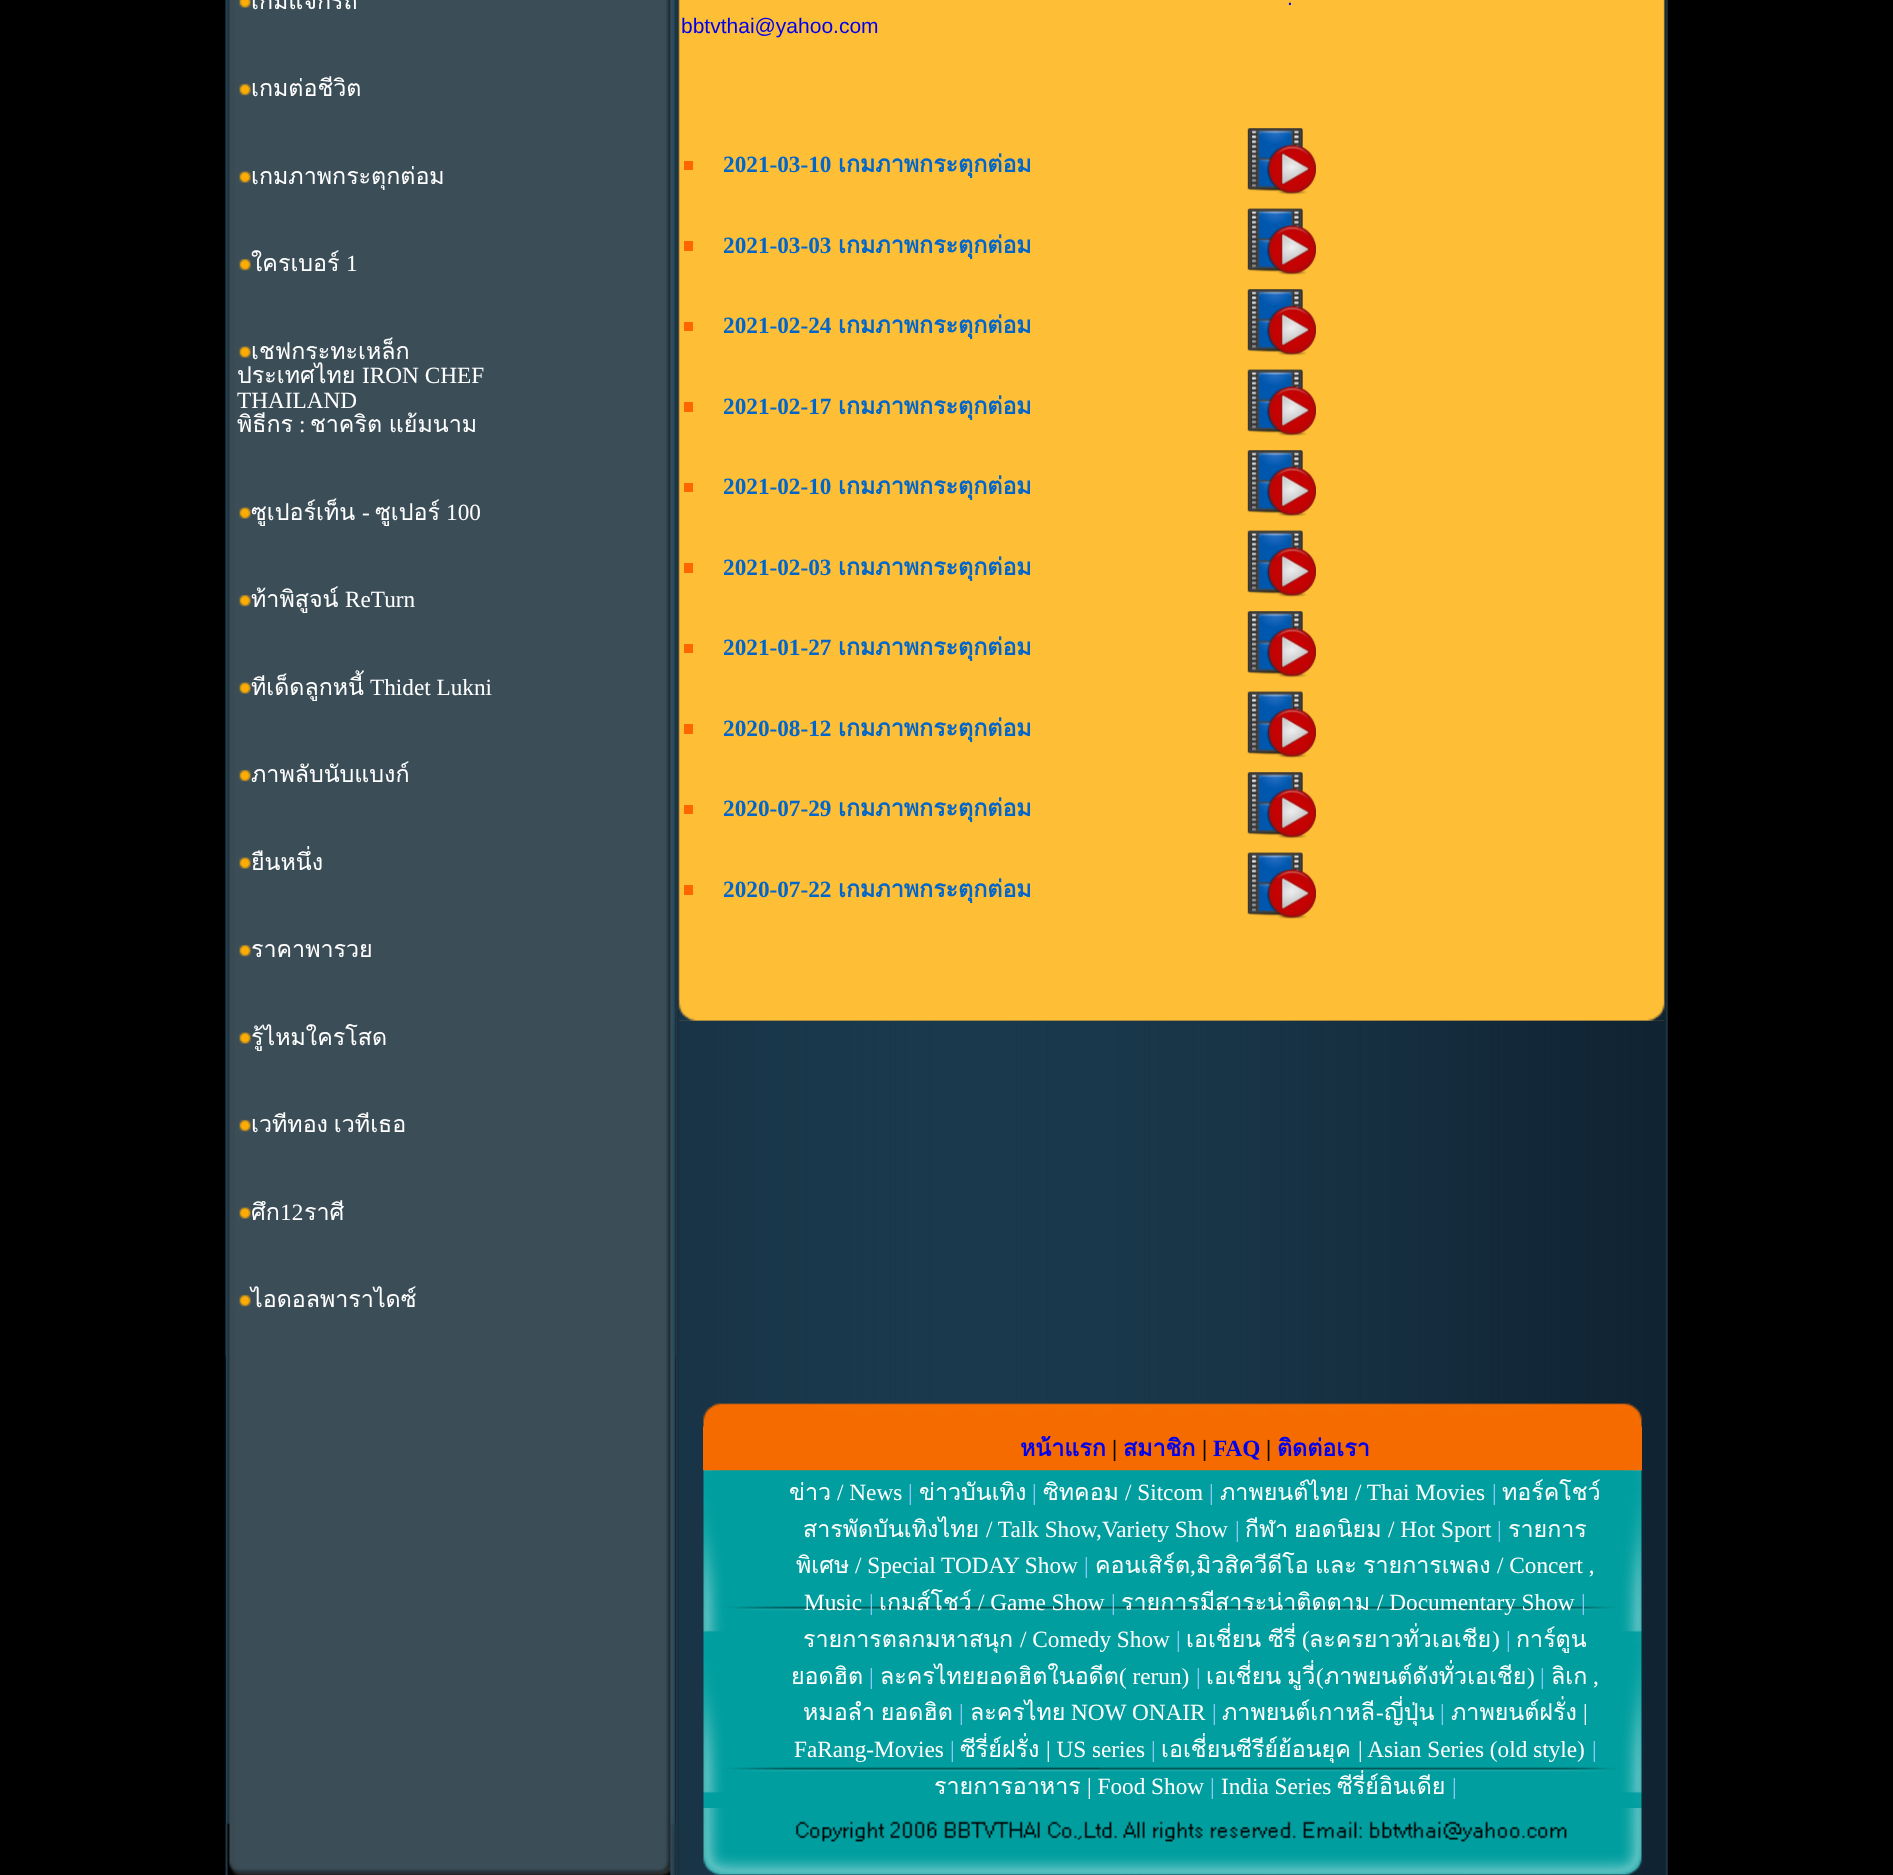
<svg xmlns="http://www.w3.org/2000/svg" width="1893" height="1875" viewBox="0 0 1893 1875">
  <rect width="100%" height="100%" fill="#000"/>
  <image x="225" y="0" width="451" height="1388" href="img/1.png"/>
  <image x="225" y="0" width="451" height="1357" href="img/2.png"/>
  <image x="225" y="0" width="451" height="1357" href="img/3.png"/>
  <image x="239" y="0" width="12" height="8" href="img/4.png"/>
  <image x="239" y="83" width="12" height="13" href="img/5.png"/>
  <image x="239" y="171" width="12" height="12" href="img/6.png"/>
  <image x="239" y="258" width="12" height="13" href="img/5.png"/>
  <image x="239" y="346" width="12" height="12" href="img/6.png"/>
  <image x="239" y="507" width="12" height="12" href="img/6.png"/>
  <image x="239" y="594" width="12" height="13" href="img/5.png"/>
  <image x="239" y="682" width="12" height="12" href="img/6.png"/>
  <image x="239" y="769" width="12" height="13" href="img/5.png"/>
  <image x="239" y="857" width="12" height="12" href="img/6.png"/>
  <image x="239" y="944" width="12" height="13" href="img/5.png"/>
  <image x="239" y="1032" width="12" height="12" href="img/6.png"/>
  <image x="239" y="1119" width="12" height="13" href="img/5.png"/>
  <image x="239" y="1207" width="12" height="12" href="img/6.png"/>
  <image x="239" y="1294" width="12" height="13" href="img/5.png"/>
  <image x="675" y="0" width="993" height="1388" href="img/7.png"/>
  <image x="678" y="0" width="987" height="1021" href="img/8.png"/>
  <path d="M684 161h9v9H684z" fill="#f60"/>
  <image x="1247" y="128" width="69" height="67" href="img/9.png"/>
  <path d="M684 241h9v10H684z" fill="#f60"/>
  <image x="1247" y="208" width="69" height="67" href="img/10.png"/>
  <path d="M684 322h9v9H684z" fill="#f60"/>
  <image x="1247" y="289" width="69" height="67" href="img/9.png"/>
  <path d="M684 402h9v10H684z" fill="#f60"/>
  <image x="1247" y="369" width="69" height="67" href="img/10.png"/>
  <path d="M684 483h9v9H684z" fill="#f60"/>
  <image x="1247" y="450" width="69" height="67" href="img/9.png"/>
  <path d="M684 563h9v10H684z" fill="#f60"/>
  <image x="1247" y="530" width="69" height="67" href="img/10.png"/>
  <path d="M684 644h9v9H684z" fill="#f60"/>
  <image x="1247" y="611" width="69" height="67" href="img/9.png"/>
  <path d="M684 724h9v10H684z" fill="#f60"/>
  <image x="1247" y="691" width="69" height="67" href="img/10.png"/>
  <path d="M684 805h9v9H684z" fill="#f60"/>
  <image x="1247" y="772" width="69" height="67" href="img/11.png"/>
  <path d="M684 885h9v10H684z" fill="#f60"/>
  <image x="1247" y="852" width="69" height="67" href="img/12.png"/>
  <image x="678" y="1020" width="987" height="1" href="img/14.png"/>
  <image x="678" y="999" width="987" height="22" href="img/13.png"/>
  <image x="225" y="1388" width="451" height="487" href="img/15.png"/>
  <image x="675" y="1388" width="993" height="487" href="img/17.png"/>
  <image x="225" y="1823" width="451" height="52" href="img/16.png"/>
  <path d="M703 1426h939v45H703z" fill="#f56b00"/>
  <image x="703" y="1403" width="939" height="24" href="img/18.png"/>
  <image x="703" y="1470" width="939" height="338" href="img/19.png"/>
  <image x="703" y="1808" width="939" height="67" href="img/20.png"/>
  <g font-family="Loma" font-size="23.25" fill="#fff">
    <text x="251" y="9">เกมแจกรถ</text>
    <text x="251" y="96">เกมต่อชีวิต</text>
    <text x="251" y="184">เกมภาพกระตุกต่อม</text>
    <text x="251" y="271">ใครเบอร์</text>
  </g>
  <text x="346" y="271" font-family="Liberation Serif" font-size="23.25" fill="#fff">1</text>
  <g font-family="Loma" font-size="23.25" fill="#fff">
    <text x="251" y="359">เชฟกระทะเหล็ก</text>
    <text x="237" y="383">ประเทศไทย</text>
  </g>
  <g font-family="Liberation Serif" font-size="23.25" fill="#fff">
    <text x="362" y="383">IRON CHEF</text>
    <text x="237" y="408">THAILAND</text>
  </g>
  <text x="237" y="432" font-family="Loma" font-size="23.25" fill="#fff">พิธีกร</text>
  <text x="299" y="432" font-family="Liberation Serif" font-size="23.25" fill="#fff">:</text>
  <g font-family="Loma" font-size="23.25" fill="#fff">
    <text x="310" y="432" word-spacing="-1">ชาคริต แย้มนาม</text>
    <text x="251" y="520">ซูเปอร์เท็น</text>
  </g>
  <g font-family="Liberation Serif" font-size="23.25" fill="#fff">
    <text x="446" y="520">100</text>
    <text x="362" y="520">-</text>
  </g>
  <g font-family="Loma" font-size="23.25" fill="#fff">
    <text x="375" y="520">ซูเปอร์</text>
    <text x="251" y="607">ท้าพิสูจน์</text>
  </g>
  <text x="345" y="607" font-family="Liberation Serif" font-size="23.25" fill="#fff">ReTurn</text>
  <text x="251" y="695" font-family="Loma" font-size="23.25" fill="#fff">ทีเด็ดลูกหนี้</text>
  <text x="370" y="695" font-family="Liberation Serif" font-size="23.25" fill="#fff">Thidet Lukni</text>
  <g font-family="Loma" font-size="23.25" fill="#fff">
    <text x="251" y="782">ภาพลับนับแบงก์</text>
    <text x="251" y="870">ยืนหนึ่ง</text>
    <text x="251" y="957">ราคาพารวย</text>
    <text x="251" y="1045">รู้ไหมใครโสด</text>
    <text x="251" y="1132" word-spacing="-2">เวทีทอง เวทีเธอ</text>
    <text x="251" y="1220">ศึก</text>
  </g>
  <text x="280" y="1220" font-family="Liberation Serif" font-size="23.25" fill="#fff">12</text>
  <g font-family="Loma" font-size="23.25" fill="#fff">
    <text x="304" y="1220">ราศี</text>
    <text x="251" y="1307">ไอดอลพาราไดซ์</text>
  </g>
  <g font-family="Liberation Sans" font-size="21" fill="#00e">
    <text x="1287" y="5">.</text>
    <text x="681" y="33">bbtvthai@yahoo.com</text>
  </g>
  <text x="723" y="172" font-family="Liberation Serif" font-size="23.25" font-weight="bold" fill="#06c">2021-03-10</text>
  <text x="838" y="172" font-family="Loma" font-size="23.25" font-weight="bold" fill="#06c">เกมภาพกระตุกต่อม</text>
  <text x="723" y="253" font-family="Liberation Serif" font-size="23.25" font-weight="bold" fill="#06c">2021-03-03</text>
  <text x="838" y="253" font-family="Loma" font-size="23.25" font-weight="bold" fill="#06c">เกมภาพกระตุกต่อม</text>
  <text x="723" y="333" font-family="Liberation Serif" font-size="23.25" font-weight="bold" fill="#06c">2021-02-24</text>
  <text x="838" y="333" font-family="Loma" font-size="23.25" font-weight="bold" fill="#06c">เกมภาพกระตุกต่อม</text>
  <text x="723" y="414" font-family="Liberation Serif" font-size="23.25" font-weight="bold" fill="#06c">2021-02-17</text>
  <text x="838" y="414" font-family="Loma" font-size="23.25" font-weight="bold" fill="#06c">เกมภาพกระตุกต่อม</text>
  <text x="723" y="494" font-family="Liberation Serif" font-size="23.25" font-weight="bold" fill="#06c">2021-02-10</text>
  <text x="838" y="494" font-family="Loma" font-size="23.25" font-weight="bold" fill="#06c">เกมภาพกระตุกต่อม</text>
  <text x="723" y="575" font-family="Liberation Serif" font-size="23.25" font-weight="bold" fill="#06c">2021-02-03</text>
  <text x="838" y="575" font-family="Loma" font-size="23.25" font-weight="bold" fill="#06c">เกมภาพกระตุกต่อม</text>
  <text x="723" y="655" font-family="Liberation Serif" font-size="23.25" font-weight="bold" fill="#06c">2021-01-27</text>
  <text x="838" y="655" font-family="Loma" font-size="23.25" font-weight="bold" fill="#06c">เกมภาพกระตุกต่อม</text>
  <text x="723" y="736" font-family="Liberation Serif" font-size="23.25" font-weight="bold" fill="#06c">2020-08-12</text>
  <text x="838" y="736" font-family="Loma" font-size="23.25" font-weight="bold" fill="#06c">เกมภาพกระตุกต่อม</text>
  <text x="723" y="816" font-family="Liberation Serif" font-size="23.25" font-weight="bold" fill="#06c">2020-07-29</text>
  <text x="838" y="816" font-family="Loma" font-size="23.25" font-weight="bold" fill="#06c">เกมภาพกระตุกต่อม</text>
  <text x="723" y="897" font-family="Liberation Serif" font-size="23.25" font-weight="bold" fill="#06c">2020-07-22</text>
  <text x="838" y="897" font-family="Loma" font-size="23.25" font-weight="bold" fill="#06c">เกมภาพกระตุกต่อม</text>
  <text x="1020" y="1456" font-family="Loma" font-size="23.25" font-weight="bold" fill="#00e">หน้าแรก</text>
  <text x="1112" y="1456" font-family="Liberation Serif" font-size="23.25" font-weight="bold" fill="#000">|</text>
  <text x="1123" y="1456" font-family="Loma" font-size="23.25" font-weight="bold" fill="#00e">สมาชิก</text>
  <text x="1202" y="1456" font-family="Liberation Serif" font-size="23.25" font-weight="bold" fill="#000">|</text>
  <text x="1213" y="1456" font-family="Liberation Serif" font-size="23.25" font-weight="bold" fill="#00e">FAQ</text>
  <text x="1266" y="1456" font-family="Liberation Serif" font-size="23.25" font-weight="bold" fill="#000">|</text>
  <text x="1277" y="1456" font-family="Loma" font-size="23.25" font-weight="bold" fill="#00e">ติดต่อเรา</text>
  <text x="789" y="1500" font-family="Loma" font-size="23.25" fill="#fff">ข่าว</text>
  <text x="908" y="1500" font-family="Liberation Serif" font-size="23.25" fill="#9cf">|</text>
  <g font-family="Loma" font-size="23.25" fill="#fff">
    <text x="919" y="1500">ข่าวบันเทิง</text>
    <text x="1220" y="1500">ภาพยนต์ไทย</text>
    <text x="1502" y="1500">ทอร์คโชว์</text>
  </g>
  <text x="837" y="1500" font-family="Liberation Serif" font-size="23.25" fill="#fff">/ News</text>
  <text x="1032" y="1500" font-family="Liberation Serif" font-size="23.25" fill="#9cf">|</text>
  <text x="1043" y="1500" font-family="Loma" font-size="23.25" fill="#fff">ซิทคอม</text>
  <text x="1125" y="1500" font-family="Liberation Serif" font-size="23.25" fill="#fff">/ Sitcom</text>
  <text x="1209" y="1500" font-family="Liberation Serif" font-size="23.25" fill="#9cf">|</text>
  <text x="1355" y="1500" font-family="Liberation Serif" font-size="23.25" fill="#fff">/ Thai Movies</text>
  <text x="1492" y="1500" font-family="Liberation Serif" font-size="23.25" fill="#9cf">|</text>
  <text x="803" y="1537" font-family="Loma" font-size="23.25" fill="#fff">สารพัดบันเทิงไทย</text>
  <text x="986" y="1537" font-family="Liberation Serif" font-size="23.25" fill="#fff">/ Talk Show,Variety Show</text>
  <text x="1294" y="1537" font-family="Loma" font-size="23.25" fill="#fff">ยอดนิยม</text>
  <text x="1235" y="1537" font-family="Liberation Serif" font-size="23.25" fill="#9cf">|</text>
  <text x="1245" y="1537" font-family="Loma" font-size="23.25" fill="#fff">กีฬา</text>
  <text x="1388" y="1537" font-family="Liberation Serif" font-size="23.25" fill="#fff">/ Hot Sport</text>
  <text x="1497" y="1537" font-family="Liberation Serif" font-size="23.25" fill="#9cf">|</text>
  <g font-family="Loma" font-size="23.25" fill="#fff">
    <text x="1508" y="1537">รายการ</text>
    <text x="796" y="1573">พิเศษ</text>
  </g>
  <text x="855" y="1573" font-family="Liberation Serif" font-size="23.25" fill="#fff">/ Special TODAY Show</text>
  <text x="1084" y="1573" font-family="Liberation Serif" font-size="23.25" fill="#9cf">|</text>
  <g font-family="Loma" font-size="23.25" fill="#fff">
    <text x="1095" y="1573">คอนเสิร์ต</text>
    <text x="1315" y="1573">และ</text>
    <text x="1363" y="1573">รายการเพลง</text>
  </g>
  <g font-family="Liberation Serif" font-size="23.25" fill="#fff">
    <text x="1497" y="1573">/ Concert ,</text>
    <text x="1190" y="1573">,</text>
  </g>
  <text x="1196" y="1573" font-family="Loma" font-size="23.25" fill="#fff">มิวสิควีดีโอ</text>
  <text x="804" y="1610" font-family="Liberation Serif" font-size="23.25" fill="#fff">Music</text>
  <text x="869" y="1610" font-family="Liberation Serif" font-size="23.25" fill="#9cf">|</text>
  <text x="879" y="1610" font-family="Loma" font-size="23.25" fill="#fff">เกมส์โชว์</text>
  <text x="978" y="1610" font-family="Liberation Serif" font-size="23.25" fill="#fff">/ Game Show</text>
  <text x="1111" y="1610" font-family="Liberation Serif" font-size="23.25" fill="#9cf">|</text>
  <text x="1121" y="1610" font-family="Loma" font-size="23.25" fill="#fff">รายการมีสาระน่าติดตาม</text>
  <text x="1377" y="1610" font-family="Liberation Serif" font-size="23.25" fill="#fff">/ Documentary Show</text>
  <text x="1581" y="1610" font-family="Liberation Serif" font-size="23.25" fill="#9cf">|</text>
  <text x="803" y="1647" font-family="Loma" font-size="23.25" fill="#fff">รายการตลกมหาสนุก</text>
  <text x="1020" y="1647" font-family="Liberation Serif" font-size="23.25" fill="#fff">/ Comedy Show</text>
  <text x="1176" y="1647" font-family="Liberation Serif" font-size="23.25" fill="#9cf">|</text>
  <text x="1186" y="1647" word-spacing="-1" font-family="Loma" font-size="23.25" fill="#fff">เอเชี่ยน ซีรี่</text>
  <text x="1302" y="1647" font-family="Liberation Serif" font-size="23.25" fill="#fff">(</text>
  <text x="1309" y="1647" font-family="Loma" font-size="23.25" fill="#fff">ละครยาวทั่วเอเชีย</text>
  <text x="1492" y="1647" font-family="Liberation Serif" font-size="23.25" fill="#fff">)</text>
  <text x="1506" y="1647" font-family="Liberation Serif" font-size="23.25" fill="#9cf">|</text>
  <g font-family="Loma" font-size="23.25" fill="#fff">
    <text x="1516" y="1647">การ์ตูน</text>
    <text x="791" y="1684">ยอดฮิต</text>
  </g>
  <text x="869" y="1684" font-family="Liberation Serif" font-size="23.25" fill="#9cf">|</text>
  <text x="880" y="1684" font-family="Loma" font-size="23.25" fill="#fff">ละครไทยยอดฮิตในอดีต</text>
  <text x="1119" y="1684" font-family="Liberation Serif" font-size="23.25" fill="#fff">( rerun)</text>
  <text x="1196" y="1684" font-family="Liberation Serif" font-size="23.25" fill="#9cf">|</text>
  <text x="1206" y="1684" word-spacing="-2" font-family="Loma" font-size="23.25" fill="#fff">เอเชี่ยน มูวี่</text>
  <text x="1316" y="1684" font-family="Liberation Serif" font-size="23.25" fill="#fff">(</text>
  <text x="1324" y="1684" font-family="Loma" font-size="23.25" fill="#fff">ภาพยนต์ดังทั่วเอเชีย</text>
  <text x="1527" y="1684" font-family="Liberation Serif" font-size="23.25" fill="#fff">)</text>
  <text x="1540" y="1684" font-family="Liberation Serif" font-size="23.25" fill="#9cf">|</text>
  <text x="1551" y="1684" font-family="Loma" font-size="23.25" fill="#fff">ลิเก</text>
  <text x="1593" y="1684" font-family="Liberation Serif" font-size="23.25" fill="#fff">,</text>
  <text x="803" y="1720" word-spacing="-2" font-family="Loma" font-size="23.25" fill="#fff">หมอลำ ยอดฮิต</text>
  <text x="959" y="1720" font-family="Liberation Serif" font-size="23.25" fill="#9cf">|</text>
  <text x="970" y="1720" font-family="Loma" font-size="23.25" fill="#fff">ละครไทย</text>
  <text x="1071" y="1720" font-family="Liberation Serif" font-size="23.25" fill="#fff">NOW ONAIR</text>
  <text x="1212" y="1720" font-family="Liberation Serif" font-size="23.25" fill="#9cf">|</text>
  <text x="1222" y="1720" font-family="Loma" font-size="23.25" fill="#fff">ภาพยนต์เกาหลี</text>
  <text x="1440" y="1720" font-family="Liberation Serif" font-size="23.25" fill="#9cf">|</text>
  <text x="1451" y="1720" font-family="Loma" font-size="23.25" fill="#fff">ภาพยนต์ฝรั่ง</text>
  <g font-family="Liberation Serif" font-size="23.25" fill="#fff">
    <text x="1583" y="1720">|</text>
    <text x="1376" y="1720">-</text>
  </g>
  <g font-family="Loma" font-size="23.25" fill="#fff">
    <text x="1384" y="1720">ญี่ปุ่น</text>
    <text x="1161" y="1757">เอเชี่ยนซีรีย์ย้อนยุค</text>
  </g>
  <text x="794" y="1757" font-family="Liberation Serif" font-size="23.25" fill="#fff">FaRang-Movies</text>
  <text x="950" y="1757" font-family="Liberation Serif" font-size="23.25" fill="#9cf">|</text>
  <text x="960" y="1757" font-family="Loma" font-size="23.25" fill="#fff">ซีรี่ย์ฝรั่ง</text>
  <text x="1046" y="1757" font-family="Liberation Serif" font-size="23.25" fill="#fff">| US series</text>
  <text x="1151" y="1757" font-family="Liberation Serif" font-size="23.25" fill="#9cf">|</text>
  <text x="1358" y="1757" font-family="Liberation Serif" font-size="23.25" fill="#fff">| Asian Series (old style)</text>
  <text x="1592" y="1757" font-family="Liberation Serif" font-size="23.25" fill="#9cf">|</text>
  <text x="934" y="1794" font-family="Loma" font-size="23.25" fill="#fff">รายการอาหาร</text>
  <text x="1087" y="1794" font-family="Liberation Serif" font-size="23.25" fill="#fff">| Food Show</text>
  <text x="1210" y="1794" font-family="Liberation Serif" font-size="23.25" fill="#9cf">|</text>
  <text x="1221" y="1794" font-family="Liberation Serif" font-size="23.25" fill="#fff">India Series</text>
  <text x="1337" y="1794" font-family="Loma" font-size="23.25" fill="#fff">ซีรี่ย์อินเดีย</text>
  <text x="1452" y="1794" font-family="Liberation Serif" font-size="23.25" fill="#9cf">|</text>
</svg>
